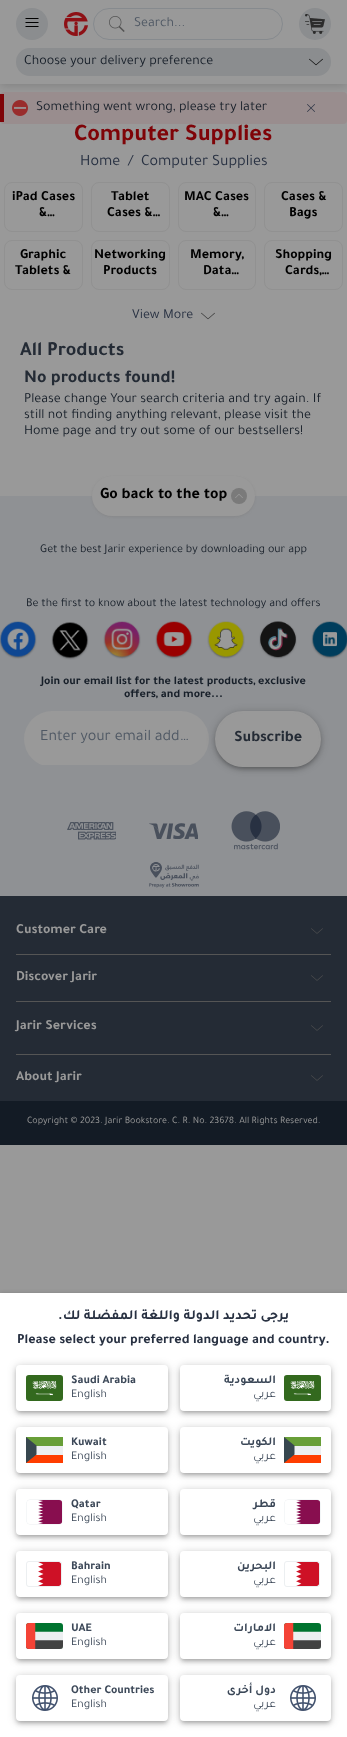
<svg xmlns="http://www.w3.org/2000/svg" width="347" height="1737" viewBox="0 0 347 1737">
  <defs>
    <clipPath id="clip1"><path d="M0 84h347v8H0z"/></clipPath>
    <clipPath id="clip2"><path d="M80 155h40v16H80z"/></clipPath>
  </defs>
  <rect width="100%" height="100%" fill="#999"/>
  <g clip-path="url(#clip1)">
    <path d="M0 2h347v84H0z" fill="#00000026" filter="blur(5px)"/>
  </g>
  <circle cx="32" cy="24" r="16" fill="#8b8d8f"/>
  <image x="25" y="18" width="14" height="9" href="img/1.png"/>
  <image x="64" y="12" width="24" height="24" href="img/2.png"/>
  <rect x="93.5" y="8.5" width="189" height="31" rx="15.5" fill="none" stroke="#868a8e"/>
  <image x="109" y="16" width="16" height="16" href="img/3.png"/>
  <circle cx="315" cy="24" r="16" fill="#8b8d8f"/>
  <image x="305" y="14" width="20" height="20" href="img/4.png"/>
  <rect x="16" y="48" width="315" height="28" rx="14" fill="#8b8d8f"/>
  <image x="309" y="58" width="14" height="8" href="img/5.png"/>
  <rect y="92" width="347" height="32" rx="4" fill="#998d8e"/>
  <path d="M0 94h4v28H0z" fill="#7f0408"/>
  <image x="12" y="100" width="16" height="16" href="img/6.png"/>
  <image x="307" y="104" width="8" height="8" href="img/7.png"/>
  <rect x="4.5" y="182.5" width="78" height="49" rx="7.5" fill="none" stroke="#919191"/>
  <rect x="91.5" y="182.5" width="78" height="49" rx="7.5" fill="none" stroke="#919191"/>
  <rect x="178.5" y="182.5" width="77" height="49" rx="7.5" fill="none" stroke="#919191"/>
  <rect x="264.5" y="182.5" width="78" height="49" rx="7.5" fill="none" stroke="#919191"/>
  <rect x="4.5" y="240.5" width="78" height="49" rx="7.5" fill="none" stroke="#919191"/>
  <rect x="91.5" y="240.5" width="78" height="49" rx="7.5" fill="none" stroke="#919191"/>
  <rect x="178.5" y="240.5" width="77" height="49" rx="7.5" fill="none" stroke="#919191"/>
  <rect x="264.5" y="240.5" width="78" height="49" rx="7.5" fill="none" stroke="#919191"/>
  <image x="201" y="312" width="14" height="8" href="img/8.png"/>
  <path d="M0 496h347v400H0z" fill="#8f9194"/>
  <rect x="92" y="477" width="163" height="40" rx="20" fill="#80808080" filter="blur(1px)"/>
  <rect x="92" y="476" width="163" height="40" rx="20" fill="#999"/>
  <circle cx="239" cy="496" r="8" fill="#7a7a7a"/>
  <image x="235" y="494" width="8" height="4" href="img/9.png"/>
  <image x="0" y="621" width="37" height="38" href="img/10.png"/>
  <image x="51" y="622" width="38" height="38" href="img/11.png"/>
  <image x="103" y="621" width="38" height="38" href="img/12.png"/>
  <image x="155" y="621" width="38" height="38" href="img/13.png"/>
  <image x="207" y="621" width="38" height="38" href="img/14.png"/>
  <image x="259" y="621" width="38" height="38" href="img/15.png"/>
  <image x="311" y="621" width="36" height="38" href="img/16.png"/>
  <rect x="24" y="711" width="185" height="56" rx="28" fill="#999"/>
  <path d="M38 765h157v2H38z" fill="#8f9194"/>
  <rect x="215" y="714" width="106" height="56" rx="28" fill="#00000024" filter="blur(2px)"/>
  <rect x="217" y="716" width="102" height="52" rx="26" fill="#0000001f" filter="blur(1.5px)"/>
  <rect x="215" y="712" width="106" height="56" rx="28" fill="#00000033" filter="blur(4px)"/>
  <rect x="216" y="712" width="104" height="54" rx="27" fill="#999" stroke="#999" stroke-width="2"/>
  <image x="67" y="822" width="49" height="18" href="img/17.png"/>
  <image x="149" y="823" width="49" height="16" href="img/18.png"/>
  <image x="231" y="811" width="49" height="39" href="img/19.png"/>
  <image x="149" y="862" width="50" height="26" href="img/20.png"/>
  <path d="M0 896h347v205H0z" fill="#242b35"/>
  <image x="311" y="928" width="12" height="6" href="img/21.png"/>
  <path d="M16 954h315v1H16z" fill="#555"/>
  <image x="311" y="975" width="12" height="6" href="img/21.png"/>
  <path d="M16 1001h315v1H16z" fill="#555"/>
  <image x="311" y="1025" width="12" height="6" href="img/21.png"/>
  <path d="M16 1054h315v1H16z" fill="#555"/>
  <image x="311" y="1075" width="12" height="6" href="img/21.png"/>
  <path d="M0 1101h347v44H0z" fill="#131b25"/>
  <path d="M0 1294h347v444H0z" fill="#00000033" filter="blur(2.5px)"/>
  <path d="M0 1293h347v444H0z" fill="#fff"/>
  <rect x="16" y="1368" width="152" height="46" rx="4" fill="#00000024" filter="blur(2px)"/>
  <rect x="18" y="1370" width="148" height="42" rx="2" fill="#0000001f" filter="blur(1.5px)"/>
  <rect x="16" y="1366" width="152" height="46" rx="4" fill="#00000033" filter="blur(4px)"/>
  <rect x="17" y="1366" width="150" height="44" rx="3" fill="#fff" stroke="#fff" stroke-width="2"/>
  <image x="26" y="1375" width="37" height="26" href="img/22.png"/>
  <rect x="180" y="1368" width="151" height="46" rx="4" fill="#00000024" filter="blur(2px)"/>
  <rect x="182" y="1370" width="147" height="42" rx="2" fill="#0000001f" filter="blur(1.5px)"/>
  <rect x="180" y="1366" width="151" height="46" rx="4" fill="#00000033" filter="blur(4px)"/>
  <rect x="181" y="1366" width="149" height="44" rx="3" fill="#fff" stroke="#fff" stroke-width="2"/>
  <image x="284" y="1375" width="37" height="26" href="img/22.png"/>
  <rect x="16" y="1430" width="152" height="46" rx="4" fill="#00000024" filter="blur(2px)"/>
  <rect x="18" y="1432" width="148" height="42" rx="2" fill="#0000001f" filter="blur(1.5px)"/>
  <rect x="16" y="1428" width="152" height="46" rx="4" fill="#00000033" filter="blur(4px)"/>
  <rect x="17" y="1428" width="150" height="44" rx="3" fill="#fff" stroke="#fff" stroke-width="2"/>
  <path d="M36 1446h27v9H36z" fill="#eceff1"/>
  <path d="M26 1455h37v8H26z" fill="#ff3d00"/>
  <path d="M26 1437h37v9H26z" fill="#689f38"/>
  <path d="M26 1437L36.5 1445.5V1454.5L26 1463Z" fill="#37474f"/>
  <rect x="180" y="1430" width="151" height="46" rx="4" fill="#00000024" filter="blur(2px)"/>
  <rect x="182" y="1432" width="147" height="42" rx="2" fill="#0000001f" filter="blur(1.5px)"/>
  <rect x="180" y="1428" width="151" height="46" rx="4" fill="#00000033" filter="blur(4px)"/>
  <rect x="181" y="1428" width="149" height="44" rx="3" fill="#fff" stroke="#fff" stroke-width="2"/>
  <path d="M294 1446h27v9H294z" fill="#eceff1"/>
  <path d="M284 1455h37v8H284z" fill="#ff3d00"/>
  <path d="M284 1437h37v9H284z" fill="#689f38"/>
  <path d="M284 1437L294.5 1445.5V1454.5L284 1463Z" fill="#37474f"/>
  <rect x="16" y="1492" width="152" height="46" rx="4" fill="#00000024" filter="blur(2px)"/>
  <rect x="18" y="1494" width="148" height="42" rx="2" fill="#0000001f" filter="blur(1.5px)"/>
  <rect x="16" y="1490" width="152" height="46" rx="4" fill="#00000033" filter="blur(4px)"/>
  <rect x="17" y="1490" width="150" height="44" rx="3" fill="#fff" stroke="#fff" stroke-width="2"/>
  <image x="26" y="1499" width="37" height="26" href="img/23.png"/>
  <rect x="180" y="1492" width="151" height="46" rx="4" fill="#00000024" filter="blur(2px)"/>
  <rect x="182" y="1494" width="147" height="42" rx="2" fill="#0000001f" filter="blur(1.5px)"/>
  <rect x="180" y="1490" width="151" height="46" rx="4" fill="#00000033" filter="blur(4px)"/>
  <rect x="181" y="1490" width="149" height="44" rx="3" fill="#fff" stroke="#fff" stroke-width="2"/>
  <image x="284" y="1499" width="37" height="26" href="img/23.png"/>
  <rect x="16" y="1554" width="152" height="46" rx="4" fill="#00000024" filter="blur(2px)"/>
  <rect x="18" y="1556" width="148" height="42" rx="2" fill="#0000001f" filter="blur(1.5px)"/>
  <rect x="16" y="1552" width="152" height="46" rx="4" fill="#00000033" filter="blur(4px)"/>
  <rect x="17" y="1552" width="150" height="44" rx="3" fill="#fff" stroke="#fff" stroke-width="2"/>
  <image x="26" y="1561" width="36" height="26" href="img/24.png"/>
  <rect x="180" y="1554" width="151" height="46" rx="4" fill="#00000024" filter="blur(2px)"/>
  <rect x="182" y="1556" width="147" height="42" rx="2" fill="#0000001f" filter="blur(1.5px)"/>
  <rect x="180" y="1552" width="151" height="46" rx="4" fill="#00000033" filter="blur(4px)"/>
  <rect x="181" y="1552" width="149" height="44" rx="3" fill="#fff" stroke="#fff" stroke-width="2"/>
  <image x="284" y="1561" width="36" height="26" href="img/24.png"/>
  <rect x="16" y="1616" width="152" height="46" rx="4" fill="#00000024" filter="blur(2px)"/>
  <rect x="18" y="1618" width="148" height="42" rx="2" fill="#0000001f" filter="blur(1.5px)"/>
  <rect x="16" y="1614" width="152" height="46" rx="4" fill="#00000033" filter="blur(4px)"/>
  <rect x="17" y="1614" width="150" height="44" rx="3" fill="#fff" stroke="#fff" stroke-width="2"/>
  <image x="26" y="1623" width="37" height="26" href="img/25.png"/>
  <rect x="180" y="1616" width="151" height="46" rx="4" fill="#00000024" filter="blur(2px)"/>
  <rect x="182" y="1618" width="147" height="42" rx="2" fill="#0000001f" filter="blur(1.5px)"/>
  <rect x="180" y="1614" width="151" height="46" rx="4" fill="#00000033" filter="blur(4px)"/>
  <rect x="181" y="1614" width="149" height="44" rx="3" fill="#fff" stroke="#fff" stroke-width="2"/>
  <image x="284" y="1623" width="37" height="26" href="img/25.png"/>
  <rect x="16" y="1678" width="152" height="46" rx="4" fill="#00000024" filter="blur(2px)"/>
  <rect x="18" y="1680" width="148" height="42" rx="2" fill="#0000001f" filter="blur(1.5px)"/>
  <rect x="16" y="1676" width="152" height="46" rx="4" fill="#00000033" filter="blur(4px)"/>
  <rect x="17" y="1676" width="150" height="44" rx="3" fill="#fff" stroke="#fff" stroke-width="2"/>
  <image x="32" y="1685" width="26" height="26" href="img/26.png"/>
  <rect x="180" y="1678" width="151" height="46" rx="4" fill="#00000024" filter="blur(2px)"/>
  <rect x="182" y="1680" width="147" height="42" rx="2" fill="#0000001f" filter="blur(1.5px)"/>
  <rect x="180" y="1676" width="151" height="46" rx="4" fill="#00000033" filter="blur(4px)"/>
  <rect x="181" y="1676" width="149" height="44" rx="3" fill="#fff" stroke="#fff" stroke-width="2"/>
  <image x="290" y="1685" width="26" height="26" href="img/26.png"/>
  <text x="134" y="26" font-family="Tajawal" font-size="14" fill="#4f5864">Search...</text>
  <g font-family="Tajawal" font-size="14" fill="#171f29">
    <text x="24" y="64">Choose your delivery preference</text>
    <text x="36" y="110">Something went wrong, please try later</text>
  </g>
  <text x="74" y="140" font-family="Tajawal" font-size="24" font-weight="bold" fill="#7f0408">Computer Supplies</text>
  <g clip-path="url(#clip2)">
    <text x="80" y="165" font-family="Tajawal" font-size="16" fill="#283142">Home</text>
  </g>
  <g font-family="Tajawal" font-size="16" fill="#283142">
    <text x="128" y="165">/</text>
    <text x="141" y="165">Computer Supplies</text>
  </g>
  <g font-family="Tajawal" font-size="14" font-weight="bold" fill="#000">
    <text x="12" y="200">iPad Cases</text>
    <text x="39" y="216">&amp;…</text>
    <text x="111" y="200">Tablet</text>
    <text x="107" y="216">Cases &amp;…</text>
    <text x="184" y="200">MAC Cases</text>
    <text x="213" y="216">&amp;…</text>
    <text x="281" y="200">Cases &amp;</text>
    <text x="289" y="216">Bags</text>
    <text x="20" y="258">Graphic</text>
    <text x="15" y="274">Tablets &amp;</text>
    <text x="94" y="258">Networking</text>
    <text x="103" y="274">Products</text>
    <text x="190" y="258">Memory,</text>
    <text x="203" y="274">Data…</text>
    <text x="275" y="258">Shopping</text>
    <text x="285" y="274">Cards,…</text>
  </g>
  <text x="132" y="318" font-family="Tajawal" font-size="14" fill="#283142">View More</text>
  <text x="20" y="355" font-family="Tajawal" font-size="20" font-weight="bold" fill="#242b35">All Products</text>
  <text x="24" y="382" font-family="Tajawal" font-size="18" font-weight="bold" fill="#242b35">No products found!</text>
  <g font-family="Tajawal" font-size="14" fill="#171f29">
    <text x="24" y="402">Please change Your search criteria and try again. If</text>
    <text x="24" y="418">still not finding anything relevant, please visit the</text>
    <text x="24" y="434">Home page and try out some of our bestsellers!</text>
  </g>
  <text x="100" y="498" font-family="Tajawal" font-size="16" font-weight="bold" fill="#000">Go back to the top</text>
  <g font-family="Tajawal" font-size="12" fill="#171f29">
    <text x="40" y="552">Get the best Jarir experience by downloading our app</text>
    <text x="26" y="606">Be the first to know about the latest technology and offers</text>
  </g>
  <g font-family="Tajawal" font-size="12" font-weight="bold" fill="#171f29">
    <text x="41" y="684">Join our email list for the latest products, exclusive</text>
    <text x="124" y="697">offers, and more...</text>
  </g>
  <text x="40" y="740" font-family="Tajawal" font-size="16" fill="#4f5864">Enter your email add…</text>
  <text x="234" y="741" font-family="Tajawal" font-size="16" font-weight="bold" fill="#242b35">Subscribe</text>
  <g font-family="Tajawal" font-size="14" font-weight="bold" fill="#999">
    <text x="16" y="933">Customer Care</text>
    <text x="16" y="980">Discover Jarir</text>
    <text x="16" y="1029">Jarir Services</text>
    <text x="16" y="1080">About Jarir</text>
  </g>
  <text x="27" y="1123" font-family="Tajawal" font-size="10" fill="#999">Copyright © 2023. Jarir Bookstore. C. R. No. 23678. All Rights Reserved.</text>
  <text x="58" y="1319" font-family="Tajawal" font-size="14" font-weight="bold" fill="#283142">.</text>
  <text x="289" y="1319" font-family="Tajawal" font-size="14" font-weight="bold" direction="rtl" fill="#283142">يرجى تحديد الدولة واللغة المفضلة لك</text>
  <text x="17" y="1343" font-family="Tajawal" font-size="14" font-weight="bold" fill="#283142">Please select your preferred language and country.</text>
  <text x="71" y="1383" font-family="Tajawal" font-size="12" font-weight="bold" fill="#3c4858">Saudi Arabia</text>
  <text x="71" y="1397" font-family="Tajawal" font-size="12" fill="#3c4858">English</text>
  <text x="276" y="1383" font-family="Tajawal" font-size="12" font-weight="bold" direction="rtl" fill="#3c4858">السعودية</text>
  <text x="276" y="1397" font-family="Tajawal" font-size="12" direction="rtl" fill="#3c4858">عربي</text>
  <text x="71" y="1445" font-family="Tajawal" font-size="12" font-weight="bold" fill="#3c4858">Kuwait</text>
  <text x="71" y="1459" font-family="Tajawal" font-size="12" fill="#3c4858">English</text>
  <text x="276" y="1445" font-family="Tajawal" font-size="12" font-weight="bold" direction="rtl" fill="#3c4858">الكويت</text>
  <text x="276" y="1459" font-family="Tajawal" font-size="12" direction="rtl" fill="#3c4858">عربي</text>
  <text x="71" y="1507" font-family="Tajawal" font-size="12" font-weight="bold" fill="#3c4858">Qatar</text>
  <text x="71" y="1521" font-family="Tajawal" font-size="12" fill="#3c4858">English</text>
  <text x="276" y="1507" font-family="Tajawal" font-size="12" font-weight="bold" direction="rtl" fill="#3c4858">قطر</text>
  <text x="276" y="1521" font-family="Tajawal" font-size="12" direction="rtl" fill="#3c4858">عربي</text>
  <text x="71" y="1569" font-family="Tajawal" font-size="12" font-weight="bold" fill="#3c4858">Bahrain</text>
  <text x="71" y="1583" font-family="Tajawal" font-size="12" fill="#3c4858">English</text>
  <text x="276" y="1569" font-family="Tajawal" font-size="12" font-weight="bold" direction="rtl" fill="#3c4858">البحرين</text>
  <text x="276" y="1583" font-family="Tajawal" font-size="12" direction="rtl" fill="#3c4858">عربي</text>
  <text x="71" y="1631" font-family="Tajawal" font-size="12" font-weight="bold" fill="#3c4858">UAE</text>
  <text x="71" y="1645" font-family="Tajawal" font-size="12" fill="#3c4858">English</text>
  <text x="276" y="1631" font-family="Tajawal" font-size="12" font-weight="bold" direction="rtl" fill="#3c4858">الامارات</text>
  <text x="276" y="1645" font-family="Tajawal" font-size="12" direction="rtl" fill="#3c4858">عربي</text>
  <text x="71" y="1693" font-family="Tajawal" font-size="12" font-weight="bold" fill="#3c4858">Other Countries</text>
  <text x="71" y="1707" font-family="Tajawal" font-size="12" fill="#3c4858">English</text>
  <text x="276" y="1693" font-family="Tajawal" font-size="12" font-weight="bold" direction="rtl" fill="#3c4858">دول أخرى</text>
  <text x="276" y="1707" font-family="Tajawal" font-size="12" direction="rtl" fill="#3c4858">عربي</text>
</svg>
